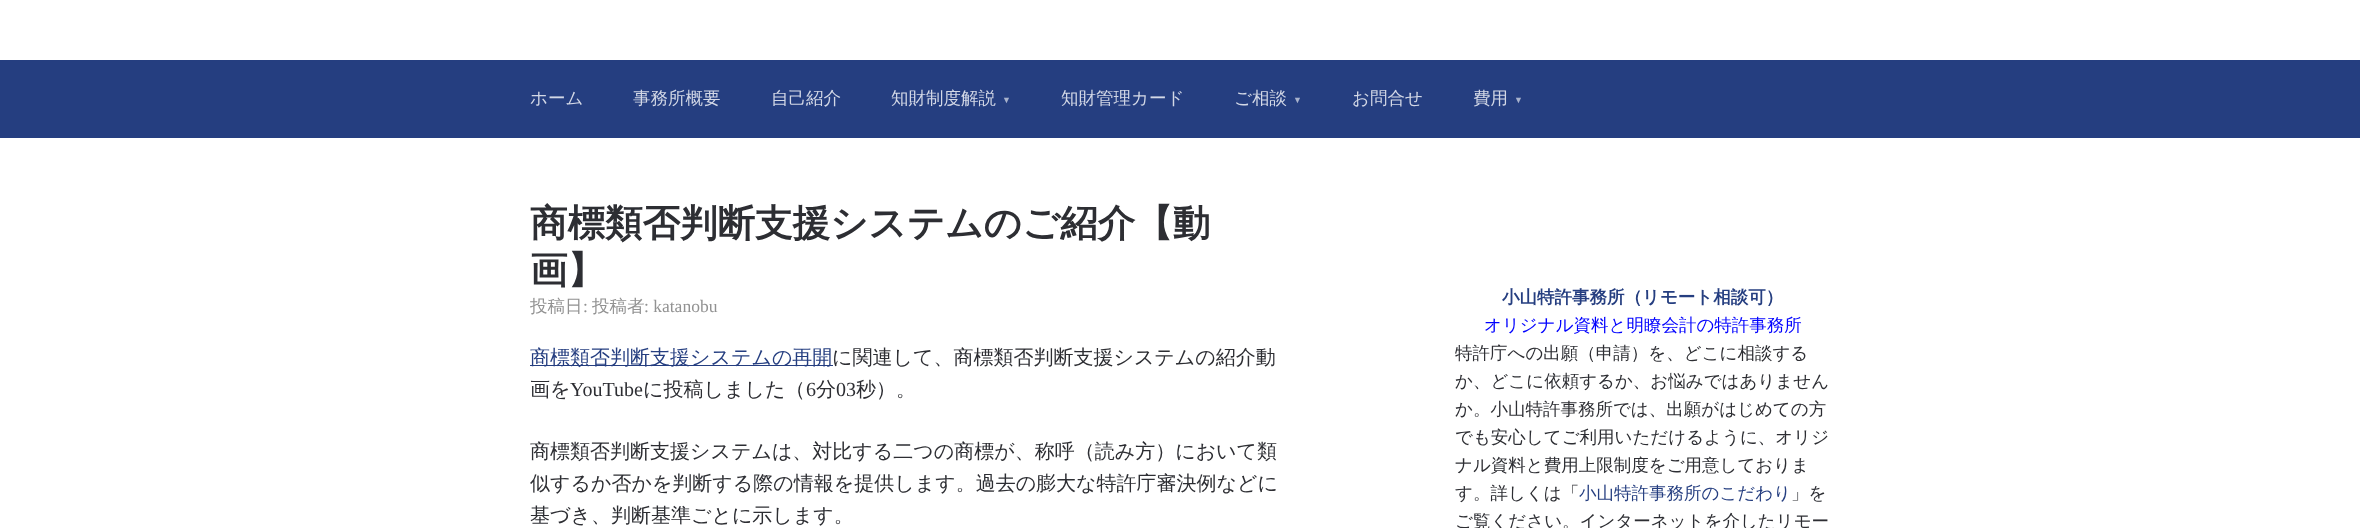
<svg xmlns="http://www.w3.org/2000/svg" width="2360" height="528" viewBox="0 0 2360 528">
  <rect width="100%" height="100%" fill="#fff"/>
  <path d="M0 60h2360v78H0z" fill="#253e80"/>
  <path d="M530 365h303v1H530z" fill="#253e80"/>
  <g font-family="WenQuanYi Zen Hei" font-size="17.5" font-weight="500" fill="#d3d8e6">
    <text x="530" y="104">ホーム</text>
    <text x="633" y="104">事務所概要</text>
    <text x="771" y="104">自己紹介</text>
    <text x="891" y="104">知財制度解説</text>
  </g>
  <text x="1002" y="103" font-family="Liberation Sans" font-size="9" fill="#a8b2cc">▼</text>
  <g font-family="WenQuanYi Zen Hei" font-size="17.5" font-weight="500" fill="#d3d8e6">
    <text x="1061" y="104">知財管理カード</text>
    <text x="1234" y="104">ご相談</text>
  </g>
  <text x="1293" y="103" font-family="Liberation Sans" font-size="9" fill="#a8b2cc">▼</text>
  <g font-family="WenQuanYi Zen Hei" font-size="17.5" font-weight="500" fill="#d3d8e6">
    <text x="1352" y="104">お問合せ</text>
    <text x="1473" y="104">費用</text>
  </g>
  <text x="1514" y="103" font-family="Liberation Sans" font-size="9" fill="#a8b2cc">▼</text>
  <g font-family="WenQuanYi Zen Hei" font-size="37.5" font-weight="bold" fill="#2d2e33">
    <text x="530" y="236">商標類否判断支援システムのご紹介【動</text>
    <text x="530" y="283">画】</text>
  </g>
  <text x="530" y="312" font-family="WenQuanYi Zen Hei" font-size="17.5" font-weight="500" fill="#929292">投稿日</text>
  <text x="583" y="312" font-family="Liberation Serif" font-size="17.5" fill="#929292">:</text>
  <text x="592" y="312" font-family="WenQuanYi Zen Hei" font-size="17.5" font-weight="500" fill="#929292">投稿者</text>
  <text x="644" y="312" font-family="Liberation Serif" font-size="17.5" fill="#929292">: katanobu</text>
  <text x="530" y="364" font-family="WenQuanYi Zen Hei" font-size="20" font-weight="500" fill="#253e80">商標類否判断支援システムの再開</text>
  <g font-family="WenQuanYi Zen Hei" font-size="20" font-weight="500" fill="#2d2e33">
    <text x="832" y="364">に関連して、商標類否判断支援システムの紹介動</text>
    <text x="530" y="396">画を</text>
  </g>
  <text x="570" y="396" font-family="Liberation Serif" font-size="20" fill="#2d2e33">YouTube</text>
  <text x="643" y="396" font-family="WenQuanYi Zen Hei" font-size="20" font-weight="500" fill="#2d2e33">に投稿しました（</text>
  <text x="806" y="396" font-family="Liberation Serif" font-size="20" fill="#2d2e33">6</text>
  <text x="816" y="396" font-family="WenQuanYi Zen Hei" font-size="20" font-weight="500" fill="#2d2e33">分</text>
  <text x="836" y="396" font-family="Liberation Serif" font-size="20" fill="#2d2e33">03</text>
  <g font-family="WenQuanYi Zen Hei" font-size="20" font-weight="500" fill="#2d2e33">
    <text x="856" y="396">秒）。</text>
    <text x="530" y="458">商標類否判断支援システムは、対比する二つの商標が、称呼（読み方）において類</text>
    <text x="530" y="490">似するか否かを判断する際の情報を提供します。過去の膨大な特許庁審決例などに</text>
    <text x="530" y="522">基づき、判断基準ごとに示します。</text>
  </g>
  <text x="1502" y="303" font-family="WenQuanYi Zen Hei" font-size="17.5" font-weight="bold" fill="#253e80">小山特許事務所（リモート相談可）</text>
  <text x="1484" y="331" font-family="WenQuanYi Zen Hei" font-size="17.5" font-weight="500" fill="#00f">オリジナル資料と明瞭会計の特許事務所</text>
  <g font-family="WenQuanYi Zen Hei" font-size="17.5" font-weight="500" fill="#2d2e33">
    <text x="1455" y="359">特許庁への出願（申請）を、どこに相談する</text>
    <text x="1455" y="387">か、どこに依頼するか、お悩みではありません</text>
    <text x="1455" y="415">か。小山特許事務所では、出願がはじめての方</text>
    <text x="1455" y="443">でも安心してご利用いただけるように、オリジ</text>
    <text x="1455" y="471">ナル資料と費用上限制度をご用意しておりま</text>
    <text x="1455" y="499">す。詳しくは「</text>
  </g>
  <text x="1579" y="499" font-family="WenQuanYi Zen Hei" font-size="17.5" font-weight="500" fill="#253e80">小山特許事務所のこだわり</text>
  <g font-family="WenQuanYi Zen Hei" font-size="17.5" font-weight="500" fill="#2d2e33">
    <text x="1791" y="499">」を</text>
    <text x="1455" y="527">ご覧ください。インターネットを介したリモー</text>
  </g>
</svg>
